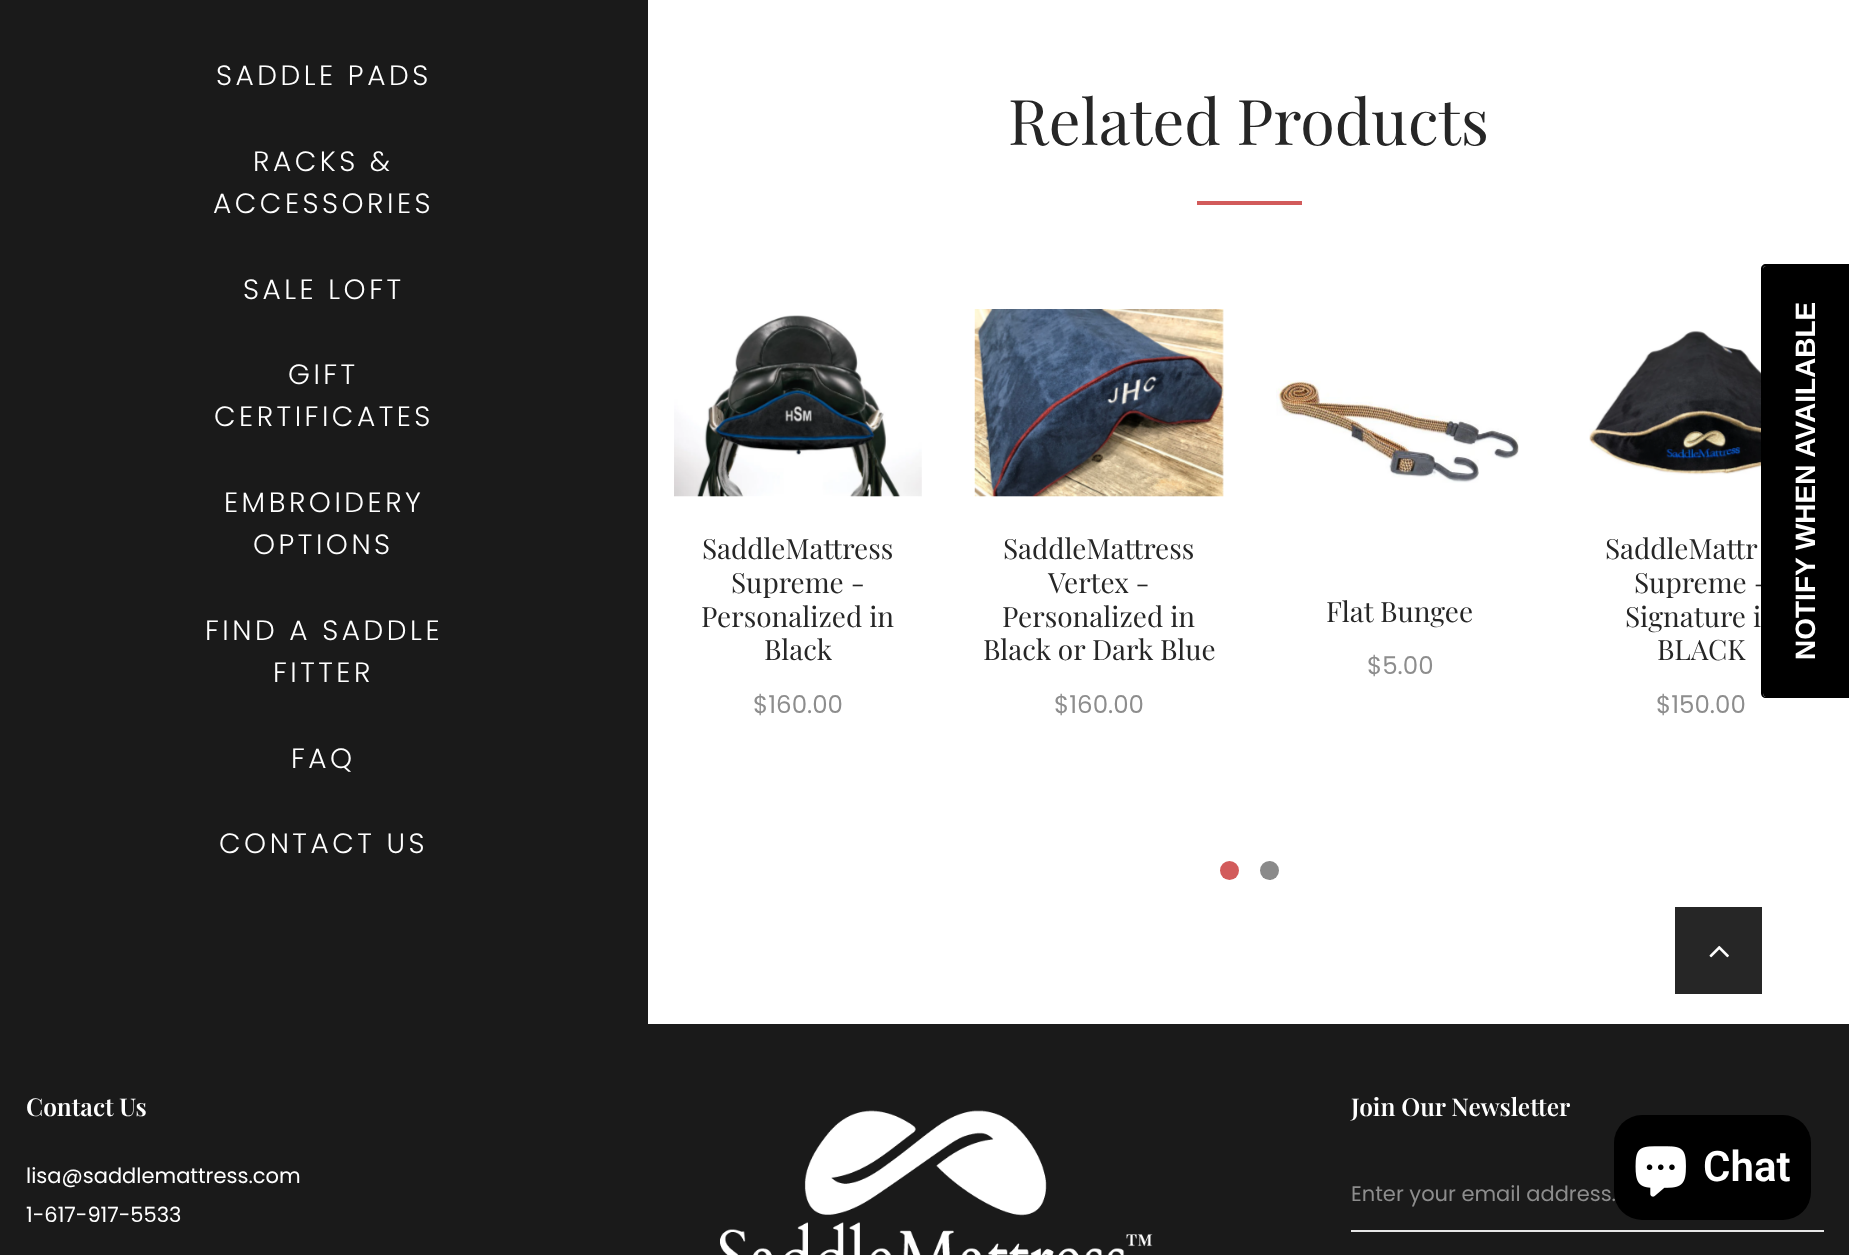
<svg xmlns="http://www.w3.org/2000/svg" width="1849" height="1255" viewBox="0 0 1849 1255">
  <rect width="100%" height="100%" fill="#fff"/>
  <path d="M0 0h648v1024H0z" fill="#1a1a1a"/>
  <path d="M1197 201h105v4H1197z" fill="#d25b5b"/>
  <image x="674" y="315" width="248" height="182" href="img/1.png"/>
  <image x="974" y="309" width="250" height="188" href="img/2.png"/>
  <image x="1276" y="380" width="243" height="103" href="img/3.png"/>
  <image x="1589" y="330" width="172" height="145" href="img/4.png"/>
  <circle cx="1229.5" cy="870.5" r="9.5" fill="#d25b5b"/>
  <circle cx="1269.5" cy="870.5" r="9.5" fill="#8a8a8a"/>
  <path d="M1675 907h87v87H1675z" fill="#262626"/>
  <image x="1709" y="945" width="20" height="13" href="img/5.png"/>
  <path d="M0 1024h1849v231H0z" fill="#1a1a1a"/>
  <image x="720" y="1110" width="433" height="145" href="img/6.png"/>
  <path d="M1351 1230h473v2H1351z" fill="#e7e7e7"/>
  <g font-family="Poppins" font-size="28" font-weight="300" letter-spacing="3.5" fill="#fff">
    <text x="216" y="85">SADDLE PADS</text>
    <text x="253" y="171">RACKS &amp;</text>
    <text x="213" y="213">ACCESSORIES</text>
    <text x="243" y="299">SALE LOFT</text>
    <text x="288" y="384">GIFT</text>
    <text x="214" y="426">CERTIFICATES</text>
    <text x="224" y="512">EMBROIDERY</text>
    <text x="253" y="554">OPTIONS</text>
    <text x="205" y="640">FIND A SADDLE</text>
    <text x="273" y="682">FITTER</text>
    <text x="291" y="768">FAQ</text>
    <text x="219" y="853">CONTACT US</text>
  </g>
  <text x="1008" y="145" font-family="Playfair Display" font-size="63" fill="#262626">Related Products</text>
  <g font-family="Playfair Display" font-size="28" fill="#262626">
    <text x="702" y="559">SaddleMattress</text>
    <text x="731" y="593">Supreme -</text>
    <text x="701" y="627">Personalized in</text>
    <text x="764" y="660">Black</text>
  </g>
  <text x="753" y="713" font-family="Poppins" font-size="24.5" fill="#8d8d8d">$160.00</text>
  <g font-family="Playfair Display" font-size="28" fill="#262626">
    <text x="1003" y="559">SaddleMattress</text>
    <text x="1048" y="593">Vertex -</text>
    <text x="1002" y="627">Personalized in</text>
    <text x="983" y="660">Black or Dark Blue</text>
  </g>
  <text x="1054" y="713" font-family="Poppins" font-size="24.5" fill="#8d8d8d">$160.00</text>
  <text x="1326" y="622" font-family="Playfair Display" font-size="28" fill="#262626">Flat Bungee</text>
  <text x="1367" y="674" font-family="Poppins" font-size="24.5" fill="#8d8d8d">$5.00</text>
  <g font-family="Playfair Display" font-size="28" fill="#262626">
    <text x="1605" y="559">SaddleMattr</text>
    <text x="1634" y="593">Supreme -</text>
    <text x="1625" y="627">Signature i</text>
    <text x="1657" y="660">BLACK</text>
  </g>
  <text x="1656" y="713" font-family="Poppins" font-size="24.5" fill="#8d8d8d">$150.00</text>
  <path d="M1763 693V269C1763 267 1764 266 1766 266H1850V697H1766C1764 697 1763 695 1763 693Z" fill="#000"/>
  <path d="M1761 693V269C1761 266 1763 264 1766 264H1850V698H1766C1763 698 1761 696 1761 693ZM1763 693V269C1763 267 1764 266 1766 266H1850V697H1766C1764 697 1763 695 1763 693Z" fill="#000" fill-rule="evenodd"/>
  <text x="1815" y="660" transform="rotate(-90 1815 660)" font-family="Liberation Sans" font-size="28" font-weight="bold" fill="#fff">NOTIFY WHEN AVAILABLE</text>
  <text x="26" y="1116" font-family="Playfair Display" font-size="24.5" font-weight="600" fill="#fff">Contact Us</text>
  <g font-family="Poppins" font-size="21" fill="#fff">
    <text x="26" y="1183">lisa@saddlemattress.com</text>
    <text x="26" y="1222">1-617-917-5533</text>
  </g>
  <text x="1351" y="1116" font-family="Playfair Display" font-size="24.5" font-weight="600" fill="#fff">Join Our Newsletter</text>
  <text x="1351" y="1201" font-family="Poppins" font-size="21" fill="#8d8d8d">Enter your email address.</text>
  <rect x="1614" y="1115" width="197" height="105" rx="28" fill="#000"/>
  <image x="1635" y="1146" width="51" height="51" href="img/7.png"/>
  <text x="1703" y="1181" font-family="Roboto" font-size="42" font-weight="600" fill="#fff">Chat</text>
</svg>
